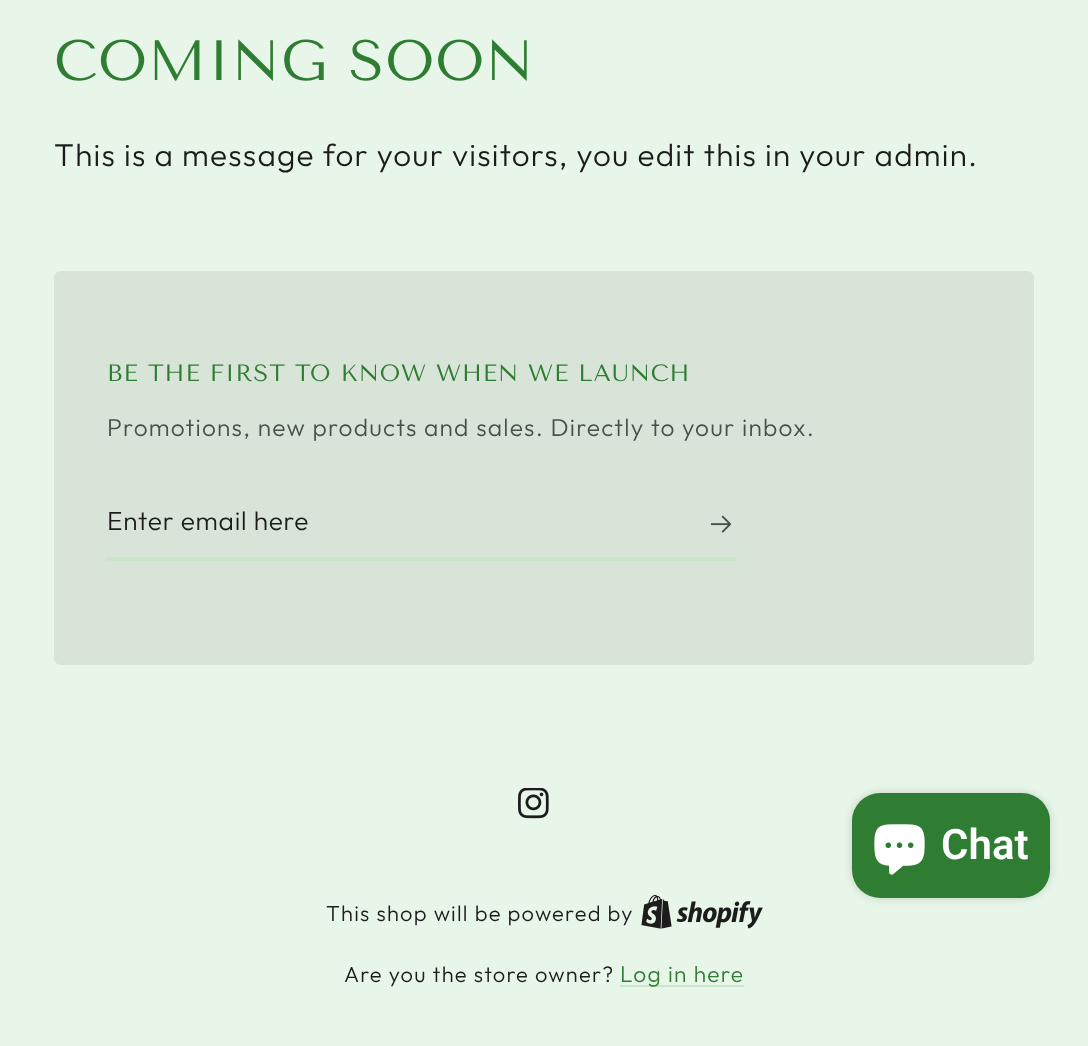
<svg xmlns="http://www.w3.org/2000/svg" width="1088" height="1046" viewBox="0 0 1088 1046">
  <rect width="100%" height="100%" fill="#e8f5e9"/>
  <rect x="54" y="271" width="980" height="394" rx="7" fill="#d8e4d8"/>
  <path d="M107 557h630v4H107z" fill="#c8e6c9"/>
  <image x="711" y="515" width="21" height="18" href="img/1.png"/>
  <image x="518" y="788" width="31" height="31" href="img/2.png"/>
  <image x="641" y="894" width="122" height="35" href="img/3.png"/>
  <path d="M620 985h124v2H620z" fill="#c8e6c9"/>
  <rect x="852" y="793" width="198" height="105" rx="28" fill="#00000026" filter="blur(4.5px)"/>
  <rect x="852" y="793" width="198" height="105" rx="28" fill="#2e7d32"/>
  <image x="874" y="824" width="51" height="51" href="img/4.png"/>
  <text x="54" y="80" font-family="Tenor Sans" font-size="56.75" letter-spacing="0.95" fill="#2e7d32">COMING SOON</text>
  <text x="54" y="166" font-family="Outfit" font-size="31.5" font-weight="300" letter-spacing="1.22" fill="#1c1c1c">This is a message for your visitors, you edit this in your admin.</text>
  <text x="107" y="381" font-family="Tenor Sans" font-size="23.6" letter-spacing="0.95" fill="#2e7d32">BE THE FIRST TO KNOW WHEN WE LAUNCH</text>
  <text x="107" y="436" font-family="Outfit" font-size="24.5" font-weight="300" letter-spacing="1.22" fill="#4b4e4b">Promotions, new products and sales. Directly to your inbox.</text>
  <text x="107" y="530" font-family="Outfit" font-size="26.25" font-weight="300" letter-spacing="0.75" fill="#1c1c1c">Enter email here</text>
  <g font-family="Outfit" font-size="21.9" font-weight="300" letter-spacing="1.22" fill="#1c1c1c">
    <text x="326" y="921">This shop will be powered by</text>
    <text x="344" y="982">Are you the store owner?</text>
  </g>
  <text x="620" y="982" font-family="Outfit" font-size="22.75" font-weight="300" letter-spacing="1.22" fill="#2e7d32">Log in here</text>
  <text x="941" y="859" font-family="Roboto" font-size="42" font-weight="600" fill="#fff">Chat</text>
</svg>
